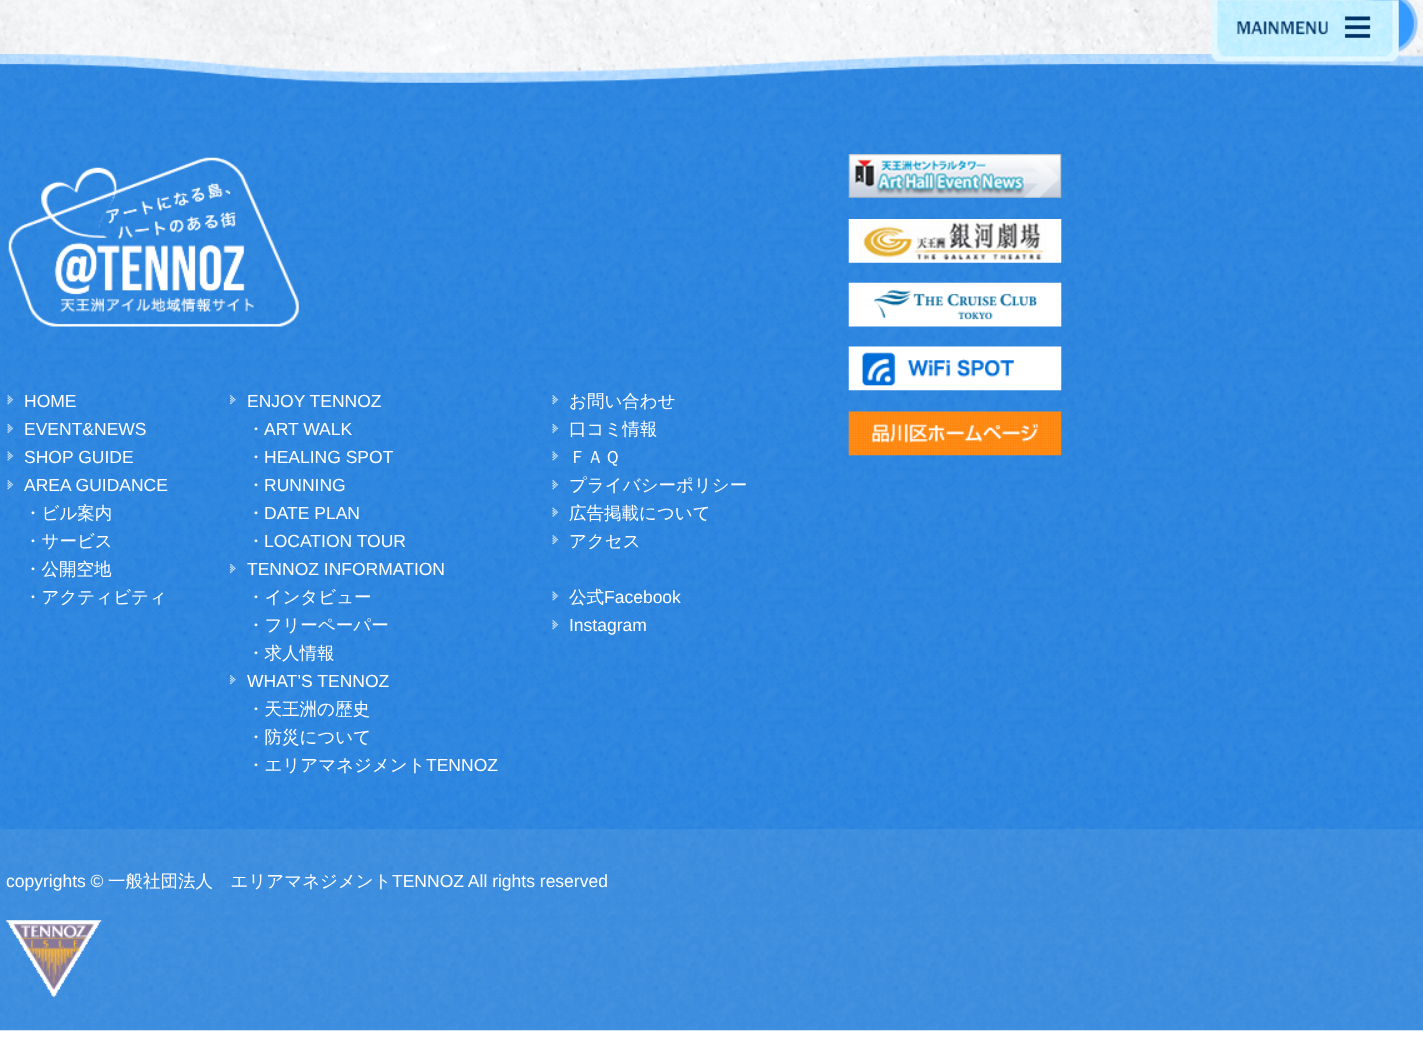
<svg xmlns="http://www.w3.org/2000/svg" width="1423" height="1057" viewBox="0 0 1423 1057">
  <rect width="100%" height="100%" fill="#fff"/>
  <image x="0" y="0" width="1423" height="1031" href="img/2.png"/>
  <image x="1365" y="0" width="53" height="53" href="img/3.png"/>
  <image x="0" y="54" width="1423" height="775" href="img/4.png"/>
  <image x="1211" y="0" width="188" height="62" href="img/1.png"/>
  <image x="848" y="154" width="214" height="44" href="img/5.png"/>
  <image x="848" y="219" width="214" height="44" href="img/6.png"/>
  <image x="848" y="282" width="214" height="45" href="img/7.png"/>
  <image x="848" y="346" width="214" height="45" href="img/8.png"/>
  <image x="848" y="411" width="214" height="45" href="img/9.png"/>
  <image x="8" y="157" width="291" height="170" href="img/10.png"/>
  <image x="7" y="395" width="7" height="10" href="img/11.png"/>
  <image x="7" y="423" width="7" height="10" href="img/12.png"/>
  <image x="7" y="451" width="7" height="10" href="img/13.png"/>
  <image x="7" y="480" width="7" height="10" href="img/14.png"/>
  <image x="229" y="395" width="7" height="10" href="img/15.png"/>
  <image x="229" y="563" width="7" height="10" href="img/16.png"/>
  <image x="229" y="675" width="7" height="10" href="img/17.png"/>
  <image x="552" y="395" width="7" height="10" href="img/18.png"/>
  <image x="552" y="423" width="7" height="10" href="img/19.png"/>
  <image x="552" y="451" width="7" height="10" href="img/20.png"/>
  <image x="552" y="480" width="7" height="10" href="img/21.png"/>
  <image x="552" y="507" width="7" height="10" href="img/22.png"/>
  <image x="552" y="535" width="7" height="10" href="img/23.png"/>
  <image x="552" y="591" width="7" height="10" href="img/24.png"/>
  <image x="552" y="620" width="7" height="10" href="img/25.png"/>
  <image x="0" y="829" width="1423" height="202" href="img/26.png"/>
  <image x="6" y="920" width="96" height="77" href="img/27.png"/>
  <g font-family="Liberation Sans" font-size="17.5" fill="#fff">
    <text x="24" y="407">HOME</text>
    <text x="24" y="435">EVENT&amp;NEWS</text>
    <text x="24" y="463">SHOP GUIDE</text>
    <text x="24" y="491">AREA GUIDANCE</text>
  </g>
  <g font-family="WenQuanYi Zen Hei" font-size="17.5" font-weight="500" fill="#fff">
    <text x="24" y="519">・ビル案内</text>
    <text x="24" y="547">・サービス</text>
    <text x="24" y="575">・公開空地</text>
    <text x="24" y="603">・アクティビティ</text>
  </g>
  <text x="247" y="407" font-family="Liberation Sans" font-size="17.5" fill="#fff">ENJOY TENNOZ</text>
  <text x="247" y="435" font-family="WenQuanYi Zen Hei" font-size="17.5" font-weight="500" fill="#fff">・</text>
  <text x="264" y="435" font-family="Liberation Sans" font-size="17.5" fill="#fff">ART WALK</text>
  <text x="247" y="463" font-family="WenQuanYi Zen Hei" font-size="17.5" font-weight="500" fill="#fff">・</text>
  <text x="264" y="463" font-family="Liberation Sans" font-size="17.5" fill="#fff">HEALING SPOT</text>
  <text x="247" y="491" font-family="WenQuanYi Zen Hei" font-size="17.5" font-weight="500" fill="#fff">・</text>
  <text x="264" y="491" font-family="Liberation Sans" font-size="17.5" fill="#fff">RUNNING</text>
  <text x="247" y="519" font-family="WenQuanYi Zen Hei" font-size="17.5" font-weight="500" fill="#fff">・</text>
  <text x="264" y="519" font-family="Liberation Sans" font-size="17.5" fill="#fff">DATE PLAN</text>
  <text x="247" y="547" font-family="WenQuanYi Zen Hei" font-size="17.5" font-weight="500" fill="#fff">・</text>
  <g font-family="Liberation Sans" font-size="17.5" fill="#fff">
    <text x="264" y="547">LOCATION TOUR</text>
    <text x="247" y="575">TENNOZ INFORMATION</text>
  </g>
  <g font-family="WenQuanYi Zen Hei" font-size="17.5" font-weight="500" fill="#fff">
    <text x="247" y="603">・インタビュー</text>
    <text x="247" y="631">・フリーペーパー</text>
    <text x="247" y="659">・求人情報</text>
  </g>
  <text x="247" y="687" font-family="Liberation Sans" font-size="17.5" fill="#fff">WHAT’S TENNOZ</text>
  <g font-family="WenQuanYi Zen Hei" font-size="17.5" font-weight="500" fill="#fff">
    <text x="247" y="715">・天王洲の歴史</text>
    <text x="247" y="743">・防災について</text>
    <text x="247" y="771">・エリアマネジメント</text>
  </g>
  <text x="426" y="771" font-family="Liberation Sans" font-size="17.5" fill="#fff">TENNOZ</text>
  <g font-family="WenQuanYi Zen Hei" font-size="17.5" font-weight="500" fill="#fff">
    <text x="569" y="407">お問い合わせ</text>
    <text x="569" y="435">口コミ情報</text>
    <text x="569" y="463">ＦＡＱ</text>
    <text x="569" y="491">プライバシーポリシー</text>
    <text x="569" y="519">広告掲載について</text>
    <text x="569" y="547">アクセス</text>
    <text x="569" y="603">公式</text>
  </g>
  <g font-family="Liberation Sans" font-size="17.5" fill="#fff">
    <text x="604" y="603">Facebook</text>
    <text x="569" y="631">Instagram</text>
    <text x="6" y="887">copyrights ©</text>
  </g>
  <text x="108" y="887" font-family="WenQuanYi Zen Hei" font-size="17.5" font-weight="500" fill="#fff">一般社団法人　エリアマネジメント</text>
  <text x="392" y="887" font-family="Liberation Sans" font-size="17.5" fill="#fff">TENNOZ All rights reserved</text>
</svg>
